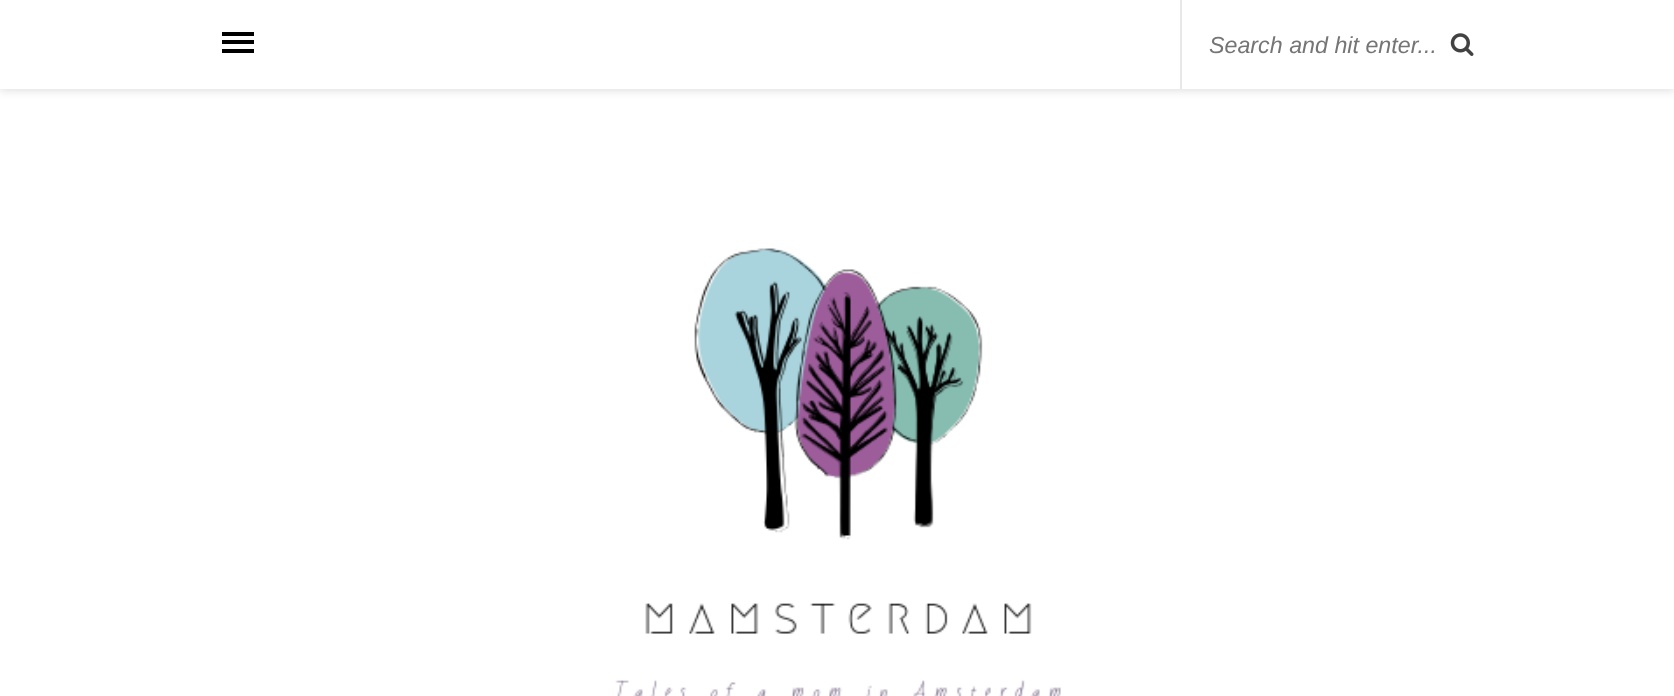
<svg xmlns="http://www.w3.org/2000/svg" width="1674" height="696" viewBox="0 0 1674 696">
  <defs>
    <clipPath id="clip1"><path d="M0 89h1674v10H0z"/></clipPath>
  </defs>
  <rect width="100%" height="100%" fill="#fff"/>
  <g clip-path="url(#clip1)">
    <path d="M0 2h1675v89H0z" fill="#bebebe75" filter="blur(4.5px)"/>
  </g>
  <path d="M222 32h32v4H222z" fill="#000"/>
  <path d="M222 40h32v4H222z" fill="#000"/>
  <path d="M222 49h32v4H222z" fill="#000"/>
  <path d="M1180 0h2v89H1180z" fill="#e8e8e8"/>
  <image x="1450" y="33" width="24" height="23" href="img/1.png"/>
  <image x="615" y="248" width="446" height="448" href="img/2.png"/>
  <text x="1209" y="53" font-family="Liberation Sans" font-size="23.25" font-style="italic" fill="#757575">Search and hit enter...</text>
</svg>
